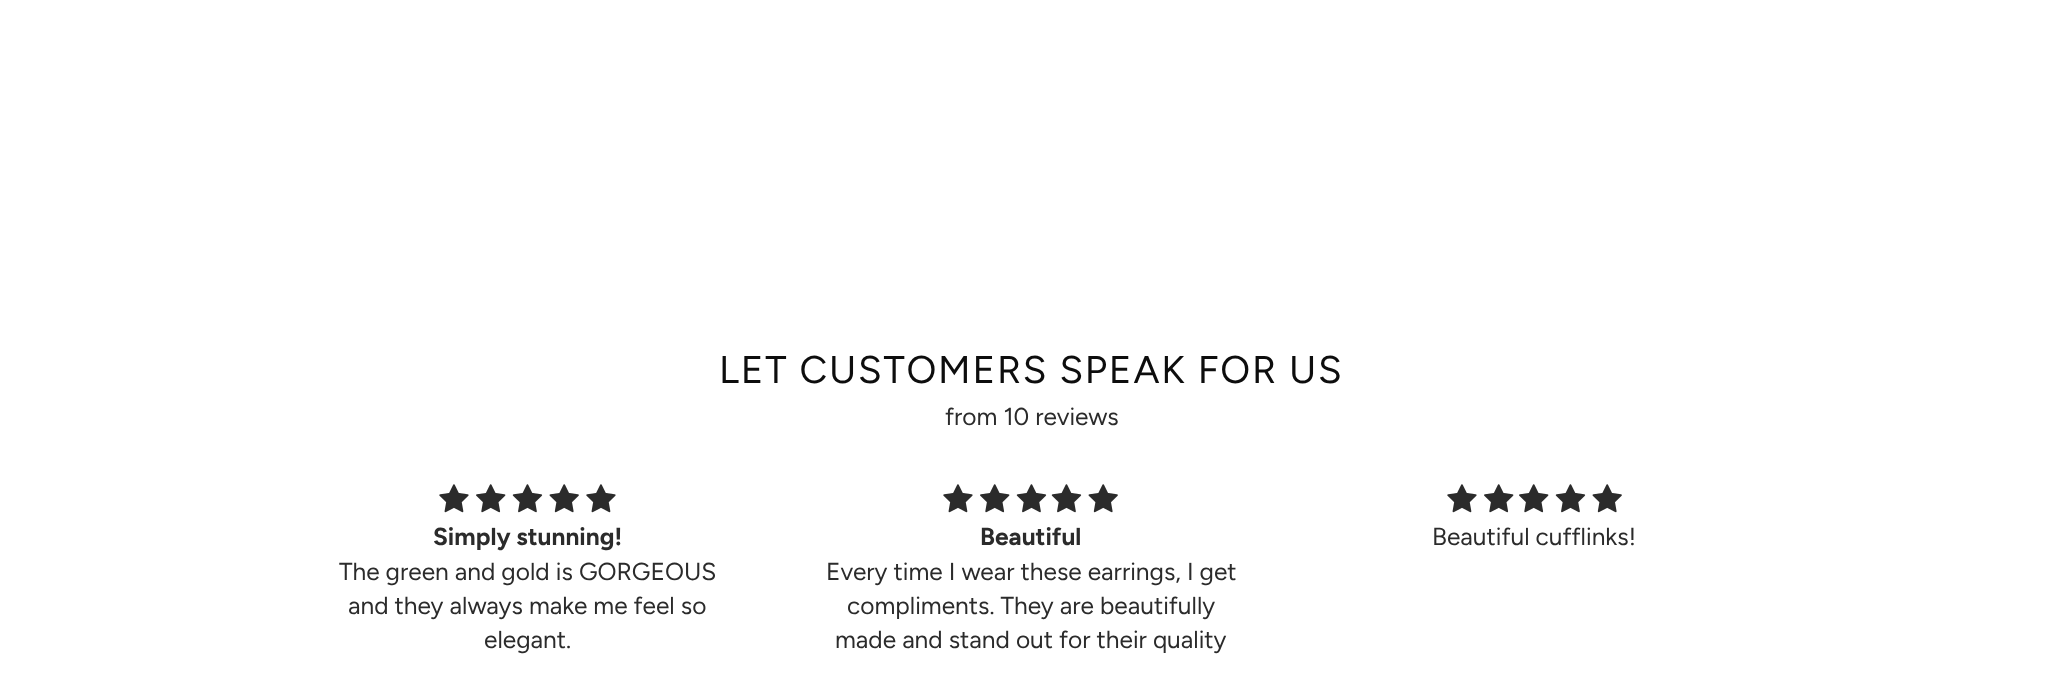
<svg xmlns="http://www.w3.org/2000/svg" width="2062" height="678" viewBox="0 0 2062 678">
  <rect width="100%" height="100%" fill="#fff"/>
  <image x="439" y="484" width="30" height="29" href="img/1.png"/>
  <image x="476" y="484" width="30" height="29" href="img/2.png"/>
  <image x="512" y="484" width="31" height="29" href="img/3.png"/>
  <image x="549" y="484" width="30" height="29" href="img/4.png"/>
  <image x="586" y="484" width="30" height="29" href="img/1.png"/>
  <image x="943" y="484" width="30" height="29" href="img/1.png"/>
  <image x="980" y="484" width="30" height="29" href="img/2.png"/>
  <image x="1016" y="484" width="31" height="29" href="img/3.png"/>
  <image x="1051" y="484" width="31" height="29" href="img/3.png"/>
  <image x="1088" y="484" width="30" height="29" href="img/4.png"/>
  <image x="1447" y="484" width="30" height="29" href="img/1.png"/>
  <image x="1484" y="484" width="30" height="29" href="img/2.png"/>
  <image x="1519" y="484" width="30" height="29" href="img/2.png"/>
  <image x="1555" y="484" width="31" height="29" href="img/3.png"/>
  <image x="1592" y="484" width="30" height="29" href="img/4.png"/>
  <text x="719" y="383" font-family="Figtree" font-size="38.5" letter-spacing="1.75" fill="#0d0d0d">LET CUSTOMERS SPEAK FOR US</text>
  <text x="945" y="425" font-family="Figtree" font-size="24.5" fill="#2b2b2b">from 10 reviews</text>
  <text x="433" y="545" font-family="Figtree" font-size="24.5" font-weight="bold" fill="#2b2b2b">Simply stunning!</text>
  <g font-family="Figtree" font-size="24.5" fill="#2b2b2b">
    <text x="339" y="580">The green and gold is GORGEOUS</text>
    <text x="348" y="614">and they always make me feel so</text>
    <text x="484" y="648">elegant.</text>
  </g>
  <text x="980" y="545" font-family="Figtree" font-size="24.5" font-weight="bold" fill="#2b2b2b">Beautiful</text>
  <g font-family="Figtree" font-size="24.5" fill="#2b2b2b">
    <text x="826" y="580">Every time I wear these earrings, I get</text>
    <text x="847" y="614">compliments. They are beautifully</text>
    <text x="835" y="648">made and stand out for their quality</text>
    <text x="1432" y="545">Beautiful cufflinks!</text>
  </g>
</svg>
